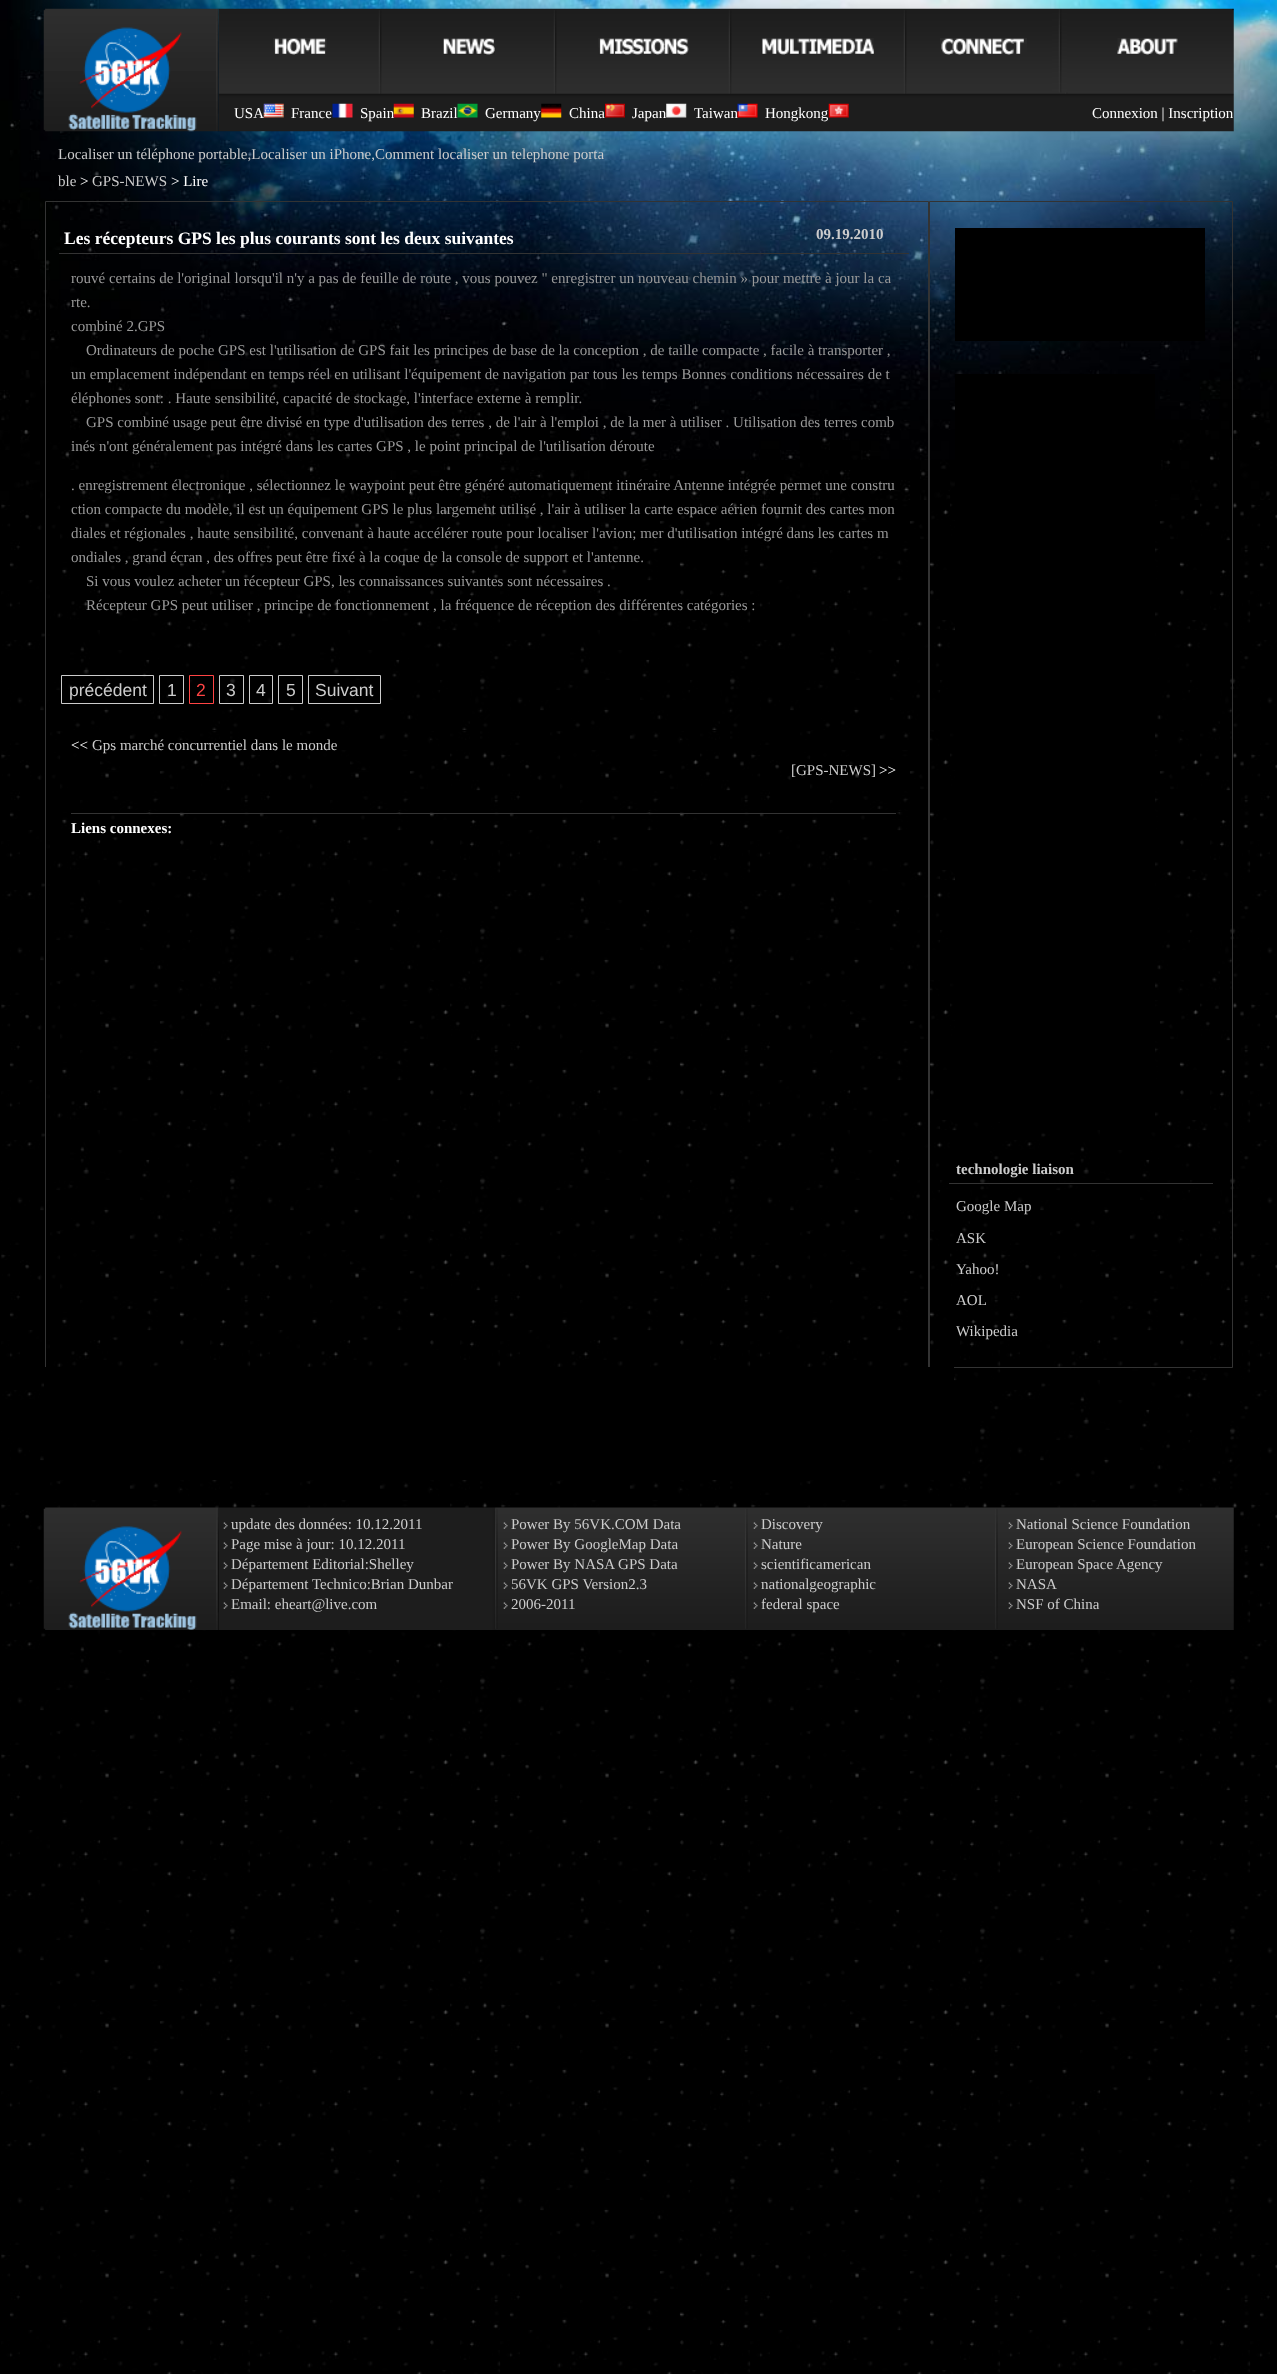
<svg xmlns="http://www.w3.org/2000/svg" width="1277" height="2374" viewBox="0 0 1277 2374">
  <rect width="100%" height="100%" fill="#000"/>
  <image x="1" y="500" width="1276" height="1874" href="img/1.png"/>
  <image x="0" y="0" width="1277" height="500" href="img/2.png"/>
  <image x="43" y="8" width="176" height="124" href="img/3.png"/>
  <image x="218" y="8" width="1016" height="124" href="img/4.png"/>
  <image x="273" y="38" width="54" height="17" href="img/5.png"/>
  <image x="443" y="38" width="52" height="17" href="img/6.png"/>
  <image x="598" y="38" width="91" height="17" href="img/7.png"/>
  <image x="761" y="38" width="113" height="17" href="img/8.png"/>
  <image x="940" y="38" width="87" height="17" href="img/9.png"/>
  <image x="1117" y="38" width="61" height="17" href="img/10.png"/>
  <image x="332" y="103" width="21" height="15" href="img/12.png"/>
  <image x="605" y="103" width="20" height="15" href="img/16.png"/>
  <path d="M45.5 201.5h883v1166H45.5z" fill="none" stroke="#333"/>
  <path d="M59 253h850v1H59z" fill="#333"/>
  <path d="M61.5 675.5h92v28H61.5z" fill="none" stroke="#ccc"/>
  <path d="M159.5 675.5h24v28H159.5z" fill="none" stroke="#ccc"/>
  <path d="M189.5 675.5h24v28H189.5z" fill="none" stroke="#f44"/>
  <path d="M219.5 675.5h24v28H219.5z" fill="none" stroke="#ccc"/>
  <path d="M249.5 675.5h23v28H249.5z" fill="none" stroke="#ccc"/>
  <path d="M278.5 675.5h24v28H278.5z" fill="none" stroke="#ccc"/>
  <path d="M308.5 675.5h72v28H308.5z" fill="none" stroke="#ccc"/>
  <path d="M59 730h752v1H59z" fill="#000"/>
  <path d="M147 811h762v1H147z" fill="#000"/>
  <path d="M71 813h825v1H71z" fill="#333"/>
  <path d="M929.5 201.5h303v1166H929.5z" fill="none" stroke="#333"/>
  <path d="M955 228h250v113H955z" fill="#000"/>
  <path d="M955 374h200v748H955z" fill="#000"/>
  <path d="M949 1183h264v1H949z" fill="#333"/>
  <path d="M44 1367h910v113H44z" fill="#000"/>
  <image x="43" y="1507" width="176" height="123" href="img/20.png"/>
  <image x="219" y="1507" width="1015" height="123" href="img/21.png"/>
  <image x="223" y="1522" width="5" height="7" href="img/22.png"/>
  <image x="223" y="1542" width="5" height="7" href="img/22.png"/>
  <image x="223" y="1562" width="5" height="7" href="img/23.png"/>
  <image x="223" y="1582" width="5" height="7" href="img/22.png"/>
  <image x="223" y="1602" width="5" height="7" href="img/22.png"/>
  <image x="503" y="1522" width="5" height="7" href="img/24.png"/>
  <image x="503" y="1542" width="5" height="7" href="img/25.png"/>
  <image x="503" y="1562" width="5" height="7" href="img/26.png"/>
  <image x="503" y="1582" width="5" height="7" href="img/27.png"/>
  <image x="503" y="1602" width="5" height="7" href="img/28.png"/>
  <image x="753" y="1522" width="5" height="7" href="img/24.png"/>
  <image x="753" y="1542" width="5" height="7" href="img/25.png"/>
  <image x="753" y="1562" width="5" height="7" href="img/26.png"/>
  <image x="753" y="1582" width="5" height="7" href="img/27.png"/>
  <image x="753" y="1602" width="5" height="7" href="img/28.png"/>
  <image x="1008" y="1522" width="5" height="7" href="img/24.png"/>
  <image x="1008" y="1542" width="5" height="7" href="img/25.png"/>
  <image x="1008" y="1562" width="5" height="7" href="img/26.png"/>
  <image x="1008" y="1582" width="5" height="7" href="img/27.png"/>
  <image x="1008" y="1602" width="5" height="7" href="img/28.png"/>
  <text x="234" y="118" font-family="Liberation Serif" font-size="15" fill="#fff">USA</text>
  <image x="263" y="103" width="21" height="15" href="img/11.png"/>
  <g font-family="Liberation Serif" font-size="15" fill="#fff">
    <text x="291" y="118">France</text>
    <text x="360" y="118">Spain</text>
  </g>
  <image x="393" y="103" width="21" height="15" href="img/13.png"/>
  <text x="421" y="118" font-family="Liberation Serif" font-size="15" fill="#fff">Brazil</text>
  <image x="457" y="103" width="21" height="15" href="img/14.png"/>
  <text x="485" y="118" font-family="Liberation Serif" font-size="15" fill="#fff">Germany</text>
  <image x="541" y="103" width="21" height="15" href="img/15.png"/>
  <g font-family="Liberation Serif" font-size="15" fill="#fff">
    <text x="569" y="118">China</text>
    <text x="632" y="118">Japan</text>
  </g>
  <image x="666" y="103" width="21" height="15" href="img/17.png"/>
  <text x="694" y="118" font-family="Liberation Serif" font-size="15" fill="#fff">Taiwan</text>
  <image x="737" y="103" width="21" height="15" href="img/18.png"/>
  <text x="765" y="118" font-family="Liberation Serif" font-size="15" fill="#fff">Hongkong</text>
  <image x="828" y="103" width="21" height="15" href="img/19.png"/>
  <text x="1092" y="118" font-family="Liberation Serif" font-size="15" fill="#fff">Connexion | Inscription</text>
  <g font-family="Liberation Serif" font-size="15" fill="#ccc">
    <text x="58" y="159">Localiser un téléphone portable,Localiser un iPhone,Comment localiser un telephone porta</text>
    <text x="58" y="186">ble</text>
  </g>
  <text x="80" y="186" font-family="Liberation Serif" font-size="15" fill="#fff">&gt;</text>
  <text x="92" y="186" font-family="Liberation Serif" font-size="15" fill="#ccc">GPS-NEWS</text>
  <text x="171" y="186" font-family="Liberation Serif" font-size="15" fill="#fff">&gt; Lire</text>
  <text x="64" y="244" font-family="Liberation Serif" font-size="17.5" font-weight="bold" fill="#fff">Les récepteurs GPS les plus courants sont les deux suivantes</text>
  <text x="816" y="239" font-family="Liberation Serif" font-size="15" font-weight="bold" fill="#ccc">09.19.2010</text>
  <g font-family="Liberation Serif" font-size="15" fill="#999">
    <text x="71" y="283">rouvé certains de l'original lorsqu'il n'y a pas de feuille de route , vous pouvez " enregistrer un nouveau chemin » pour mettre à jour la ca</text>
    <text x="71" y="307">rte.</text>
    <text x="71" y="331">combiné 2.GPS</text>
    <text x="86" y="355">Ordinateurs de poche GPS est l'utilisation de GPS fait les principes de base de la conception , de taille compacte , facile à transporter ,</text>
    <text x="71" y="379">un emplacement indépendant en temps réel en utilisant l'équipement de navigation par tous les temps Bonnes conditions nécessaires de t</text>
    <text x="71" y="403">éléphones sont: . Haute sensibilité, capacité de stockage, l'interface externe à remplir.</text>
    <text x="86" y="427">GPS combiné usage peut être divisé en type d'utilisation des terres , de l'air à l'emploi , de la mer à utiliser . Utilisation des terres comb</text>
    <text x="71" y="451">inés n'ont généralement pas intégré dans les cartes GPS , le point principal de l'utilisation déroute</text>
    <text x="71" y="490">. enregistrement électronique , sélectionnez le waypoint peut être généré automatiquement itinéraire Antenne intégrée permet une constru</text>
    <text x="71" y="514">ction compacte du modèle, il est un équipement GPS le plus largement utilisé , l'air à utiliser la carte espace aérien fournit des cartes mon</text>
    <text x="71" y="538">diales et régionales , haute sensibilité, convenant à haute accélérer route pour localiser l'avion; mer d'utilisation intégré dans les cartes m</text>
    <text x="71" y="562">ondiales , grand écran , des offres peut être fixé à la coque de la console de support et l'antenne.</text>
    <text x="86" y="586">Si vous voulez acheter un récepteur GPS, les connaissances suivantes sont nécessaires .</text>
    <text x="86" y="610">Récepteur GPS peut utiliser , principe de fonctionnement , la fréquence de réception des différentes catégories :</text>
  </g>
  <g font-family="Liberation Sans" font-size="17.5" fill="#ccc">
    <text x="69" y="696">précédent</text>
    <text x="167" y="696">1</text>
  </g>
  <text x="196" y="696" font-family="Liberation Sans" font-size="17.5" fill="#f44">2</text>
  <g font-family="Liberation Sans" font-size="17.5" fill="#ccc">
    <text x="226" y="696">3</text>
    <text x="256" y="696">4</text>
    <text x="286" y="696">5</text>
    <text x="315" y="696">Suivant</text>
  </g>
  <text x="71" y="750" font-family="Liberation Serif" font-size="15" fill="#fff">&lt;&lt;</text>
  <g font-family="Liberation Serif" font-size="15" fill="#ccc">
    <text x="92" y="750">Gps marché concurrentiel dans le monde</text>
    <text x="791" y="775">[GPS-NEWS]</text>
  </g>
  <text x="879" y="775" font-family="Liberation Serif" font-size="15" fill="#fff">&gt;&gt;</text>
  <text x="71" y="833" font-family="Liberation Serif" font-size="15" font-weight="bold" fill="#fff">Liens connexes:</text>
  <text x="956" y="1174" font-family="Liberation Serif" font-size="15" font-weight="bold" fill="#ccc">technologie liaison</text>
  <g font-family="Liberation Serif" font-size="15" fill="#ccc">
    <text x="956" y="1211">Google Map</text>
    <text x="956" y="1243">ASK</text>
    <text x="956" y="1274">Yahoo!</text>
    <text x="956" y="1305">AOL</text>
    <text x="956" y="1336">Wikipedia</text>
    <text x="231" y="1529">update des données: 10.12.2011</text>
    <text x="231" y="1549">Page mise à jour: 10.12.2011</text>
    <text x="231" y="1569">Département Editorial:Shelley</text>
    <text x="231" y="1589">Département Technico:Brian Dunbar</text>
    <text x="231" y="1609">Email: eheart@live.com</text>
    <text x="511" y="1529">Power By 56VK.COM Data</text>
    <text x="511" y="1549">Power By GoogleMap Data</text>
    <text x="511" y="1569">Power By NASA GPS Data</text>
    <text x="511" y="1589">56VK GPS Version2.3</text>
    <text x="511" y="1609">2006-2011</text>
    <text x="761" y="1529">Discovery</text>
    <text x="761" y="1549">Nature</text>
    <text x="761" y="1569">scientificamerican</text>
    <text x="761" y="1589">nationalgeographic</text>
    <text x="761" y="1609">federal space</text>
    <text x="1016" y="1529">National Science Foundation</text>
    <text x="1016" y="1549">European Science Foundation</text>
    <text x="1016" y="1569">European Space Agency</text>
    <text x="1016" y="1589">NASA</text>
    <text x="1016" y="1609">NSF of China</text>
  </g>
</svg>
